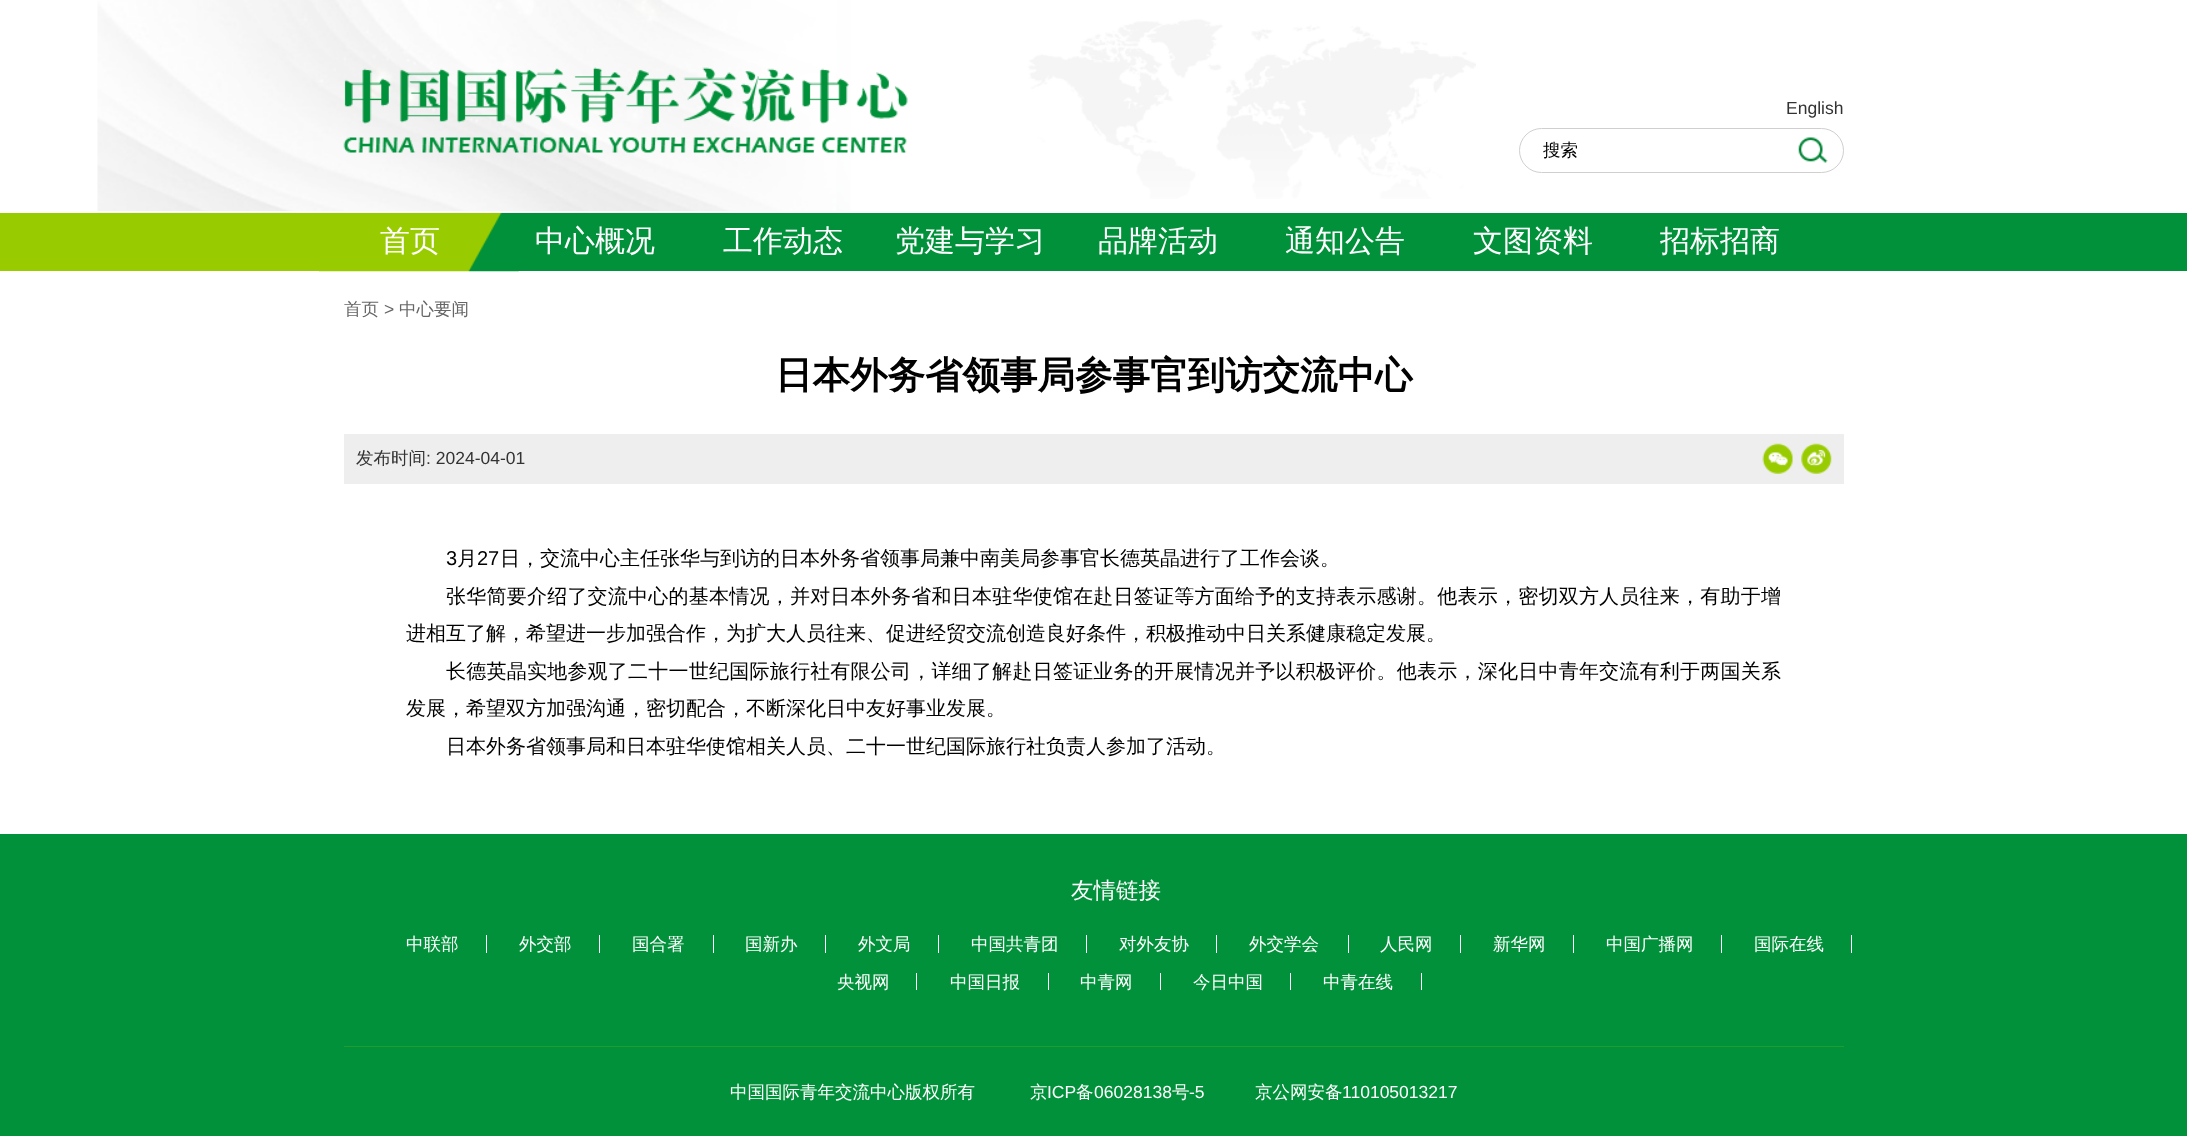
<svg xmlns="http://www.w3.org/2000/svg" width="2187" height="1139" viewBox="0 0 2187 1139">
  <rect width="100%" height="100%" fill="#fff"/>
  <image x="97" y="0" width="1379" height="213" href="img/1.png"/>
  <path d="M97 211h753v1H97z" fill="#fff"/>
  <image x="343" y="67" width="565" height="86" href="img/2.png"/>
  <rect x="1519.5" y="128.5" width="324" height="44" rx="22" fill="none" stroke="#cfcfcf"/>
  <image x="1798" y="137" width="30" height="26" href="img/3.png"/>
  <path d="M0 213h319v58H0z" fill="#9c0"/>
  <path d="M518 213h1669v58H518z" fill="#00913a"/>
  <image x="318" y="213" width="201" height="59" href="img/4.png"/>
  <path d="M344 434h1500v50H344z" fill="#eee"/>
  <image x="1762" y="443" width="31" height="31" href="img/5.png"/>
  <image x="1801" y="443" width="31" height="31" href="img/6.png"/>
  <path d="M0 834h2187v302H0z" fill="#00913a"/>
  <path d="M486 935h1v18H486z" fill="#fff"/>
  <path d="M599 935h1v18H599z" fill="#fff"/>
  <path d="M713 935h1v18H713z" fill="#fff"/>
  <path d="M825 935h1v18H825z" fill="#fff"/>
  <path d="M938 935h1v18H938z" fill="#fff"/>
  <path d="M1086 935h1v18H1086z" fill="#fff"/>
  <path d="M1216 935h1v18H1216z" fill="#fff"/>
  <path d="M1348 935h1v18H1348z" fill="#fff"/>
  <path d="M1460 935h1v18H1460z" fill="#fff"/>
  <path d="M1573 935h1v18H1573z" fill="#fff"/>
  <path d="M1721 935h1v18H1721z" fill="#fff"/>
  <path d="M1851 935h1v18H1851z" fill="#fff"/>
  <path d="M916 973h1v17H916z" fill="#fff"/>
  <path d="M1048 973h1v17H1048z" fill="#fff"/>
  <path d="M1160 973h1v17H1160z" fill="#fff"/>
  <path d="M1290 973h1v17H1290z" fill="#fff"/>
  <path d="M1421 973h1v17H1421z" fill="#fff"/>
  <path d="M344 1046h1500v1H344z" fill="#1f9d2e"/>
  <text x="1786" y="114" font-family="Liberation Sans" font-size="17.5" fill="#333">English</text>
  <text x="1543" y="156" font-family="WenQuanYi Zen Hei" font-size="17.5" font-weight="500" fill="#010101">搜索</text>
  <g font-family="WenQuanYi Zen Hei" font-size="30" font-weight="500" fill="#fff">
    <text x="380" y="251">首页</text>
    <text x="535" y="251">中心概况</text>
    <text x="723" y="251">工作动态</text>
    <text x="895" y="251">党建与学习</text>
    <text x="1098" y="251">品牌活动</text>
    <text x="1285" y="251">通知公告</text>
    <text x="1473" y="251">文图资料</text>
    <text x="1660" y="251">招标招商</text>
  </g>
  <text x="344" y="315" font-family="WenQuanYi Zen Hei" font-size="17.5" font-weight="500" fill="#666">首页</text>
  <text x="384" y="315" font-family="Liberation Sans" font-size="17.5" fill="#666">&gt;</text>
  <text x="399" y="315" font-family="WenQuanYi Zen Hei" font-size="17.5" font-weight="500" fill="#666">中心要闻</text>
  <text x="775" y="388" font-family="WenQuanYi Zen Hei" font-size="37.5" font-weight="bold" fill="#010101">日本外务省领事局参事官到访交流中心</text>
  <text x="356" y="464" font-family="WenQuanYi Zen Hei" font-size="17.5" font-weight="500" fill="#333">发布时间</text>
  <text x="426" y="464" font-family="Liberation Sans" font-size="17.5" fill="#333">: 2024-04-01</text>
  <text x="446" y="565" font-family="Liberation Sans" font-size="20" fill="#010101">3</text>
  <text x="457" y="565" font-family="WenQuanYi Zen Hei" font-size="20" font-weight="500" fill="#010101">月</text>
  <text x="477" y="565" font-family="Liberation Sans" font-size="20" fill="#010101">27</text>
  <text x="500" y="565" font-family="WenQuanYi Zen Hei" font-size="20" font-weight="500" fill="#010101">日，交流中心主任张华与到访的日本外务省领事局兼中南美局参事官长德英晶进行了工作会谈。</text>
  <text x="446" y="603" font-family="WenQuanYi Zen Hei" font-size="20" font-weight="500" letter-spacing="0.23" fill="#010101">张华简要介绍了交流中心的基本情况，并对日本外务省和日本驻华使馆在赴日签证等方面给予的支持表示感谢。他表示，密切双方人员往来，有助于增</text>
  <text x="406" y="640" font-family="WenQuanYi Zen Hei" font-size="20" font-weight="500" fill="#010101">进相互了解，希望进一步加强合作，为扩大人员往来、促进经贸交流创造良好条件，积极推动中日关系健康稳定发展。</text>
  <text x="446" y="678" font-family="WenQuanYi Zen Hei" font-size="20" font-weight="500" letter-spacing="0.23" fill="#010101">长德英晶实地参观了二十一世纪国际旅行社有限公司，详细了解赴日签证业务的开展情况并予以积极评价。他表示，深化日中青年交流有利于两国关系</text>
  <g font-family="WenQuanYi Zen Hei" font-size="20" font-weight="500" fill="#010101">
    <text x="406" y="715">发展，希望双方加强沟通，密切配合，不断深化日中友好事业发展。</text>
    <text x="446" y="753">日本外务省领事局和日本驻华使馆相关人员、二十一世纪国际旅行社负责人参加了活动。</text>
  </g>
  <text x="1071" y="898" font-family="WenQuanYi Zen Hei" font-size="22.5" font-weight="500" fill="#fff">友情链接</text>
  <g font-family="WenQuanYi Zen Hei" font-size="17.5" font-weight="500" fill="#fff">
    <text x="406" y="950">中联部</text>
    <text x="519" y="950">外交部</text>
    <text x="632" y="950">国合署</text>
    <text x="745" y="950">国新办</text>
    <text x="858" y="950">外文局</text>
    <text x="971" y="950">中国共青团</text>
    <text x="1119" y="950">对外友协</text>
    <text x="1249" y="950">外交学会</text>
    <text x="1380" y="950">人民网</text>
    <text x="1493" y="950">新华网</text>
    <text x="1606" y="950">中国广播网</text>
    <text x="1754" y="950">国际在线</text>
    <text x="837" y="988">央视网</text>
    <text x="950" y="988">中国日报</text>
    <text x="1080" y="988">中青网</text>
    <text x="1193" y="988">今日中国</text>
    <text x="1323" y="988">中青在线</text>
    <text x="730" y="1098">中国国际青年交流中心版权所有</text>
    <text x="1030" y="1098">京</text>
  </g>
  <text x="1047" y="1098" font-family="Liberation Sans" font-size="17.5" fill="#fff">ICP</text>
  <text x="1076" y="1098" font-family="WenQuanYi Zen Hei" font-size="17.5" font-weight="500" fill="#fff">备</text>
  <text x="1094" y="1098" font-family="Liberation Sans" font-size="17.5" fill="#fff">06028138</text>
  <text x="1172" y="1098" font-family="WenQuanYi Zen Hei" font-size="17.5" font-weight="500" fill="#fff">号</text>
  <text x="1189" y="1098" font-family="Liberation Sans" font-size="17.5" fill="#fff">-5</text>
  <text x="1255" y="1098" font-family="WenQuanYi Zen Hei" font-size="17.5" font-weight="500" fill="#fff">京公网安备</text>
  <text x="1342" y="1098" font-family="Liberation Sans" font-size="17.5" fill="#fff">110105013217</text>
</svg>
